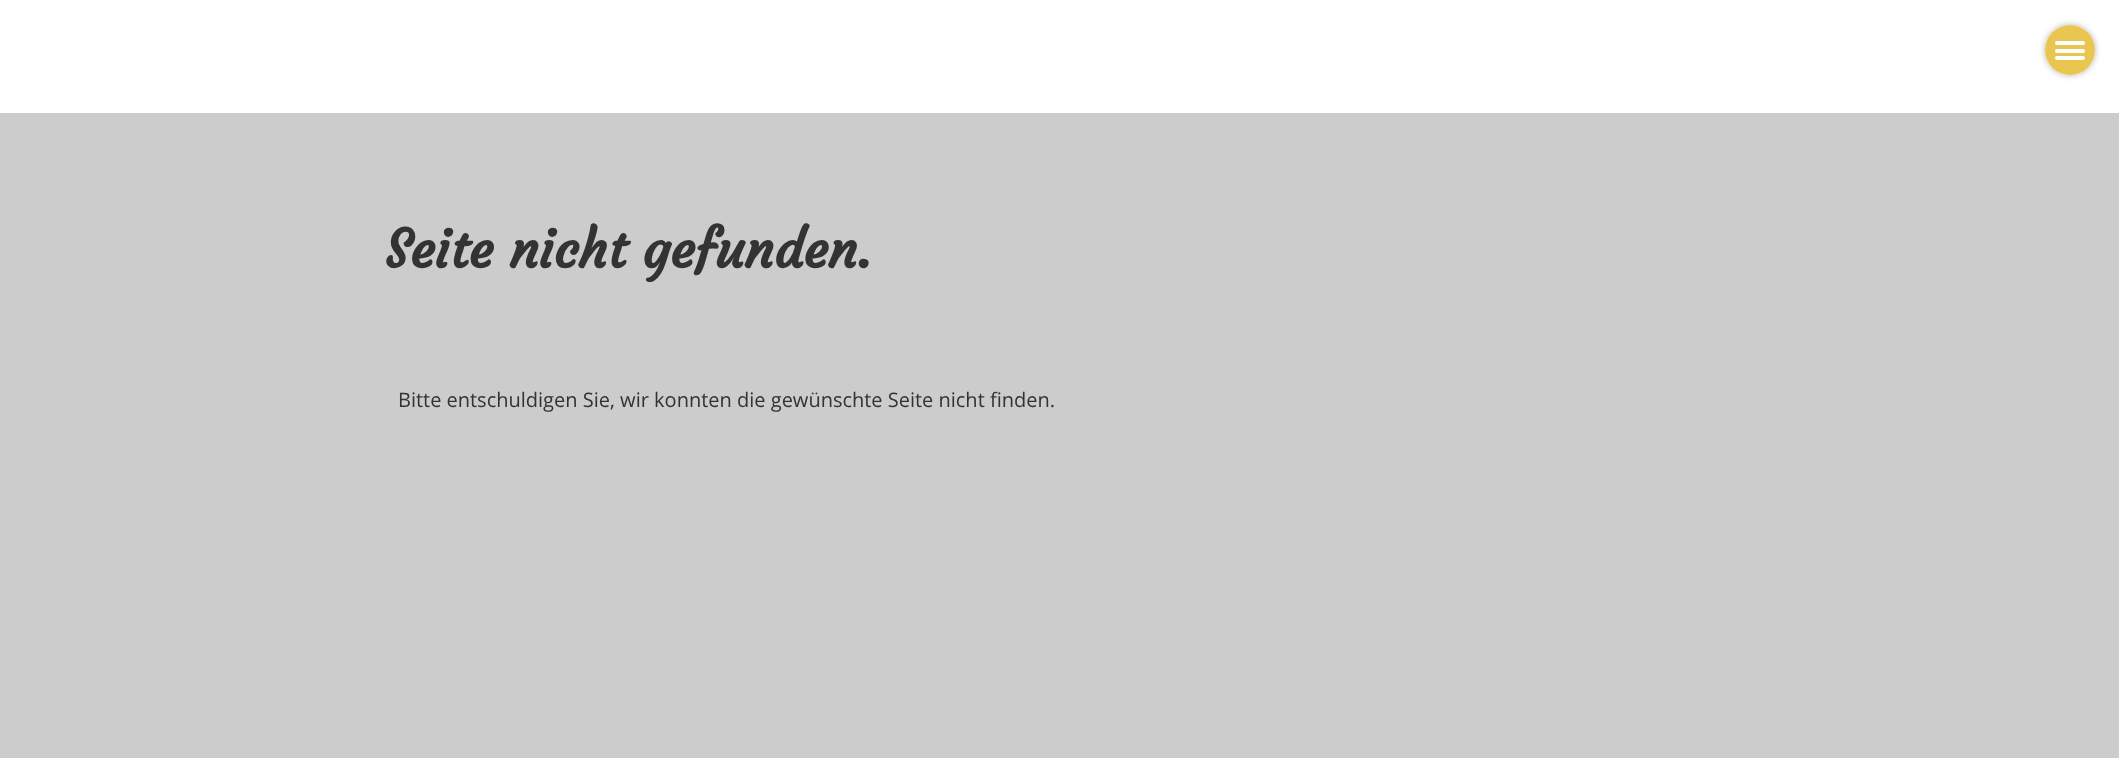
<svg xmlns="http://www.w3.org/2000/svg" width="2119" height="758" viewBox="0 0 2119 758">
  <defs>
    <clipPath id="clip1"><path d="M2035 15H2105V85H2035ZM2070 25C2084 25 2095 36 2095 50C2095 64 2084 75 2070 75C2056 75 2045 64 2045 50C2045 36 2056 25 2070 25Z" clip-rule="evenodd"/></clipPath>
  </defs>
  <rect width="100%" height="100%" fill="#fff"/>
  <g clip-path="url(#clip1)">
    <rect x="2045" y="25" width="50" height="50" rx="25" fill="#0000004d" filter="blur(3px)"/>
  </g>
  <circle cx="2070" cy="50" r="25" fill="#e7c03de6"/>
  <rect x="2055" y="41" width="30" height="4" rx="2" fill="#fff"/>
  <rect x="2055" y="49" width="30" height="4" rx="2" fill="#fff"/>
  <rect x="2055" y="56" width="30" height="4" rx="2" fill="#fff"/>
  <path d="M0 113h2119v645H0z" fill="#ccc"/>
  <text x="385" y="268" font-family="Courgette" font-size="52.5" font-weight="bold" fill="#333">Seite nicht gefunden.</text>
  <text x="398" y="407" font-family="Open Sans" font-size="20" fill="#333">Bitte entschuldigen Sie, wir konnten die gewünschte Seite nicht finden.</text>
</svg>
